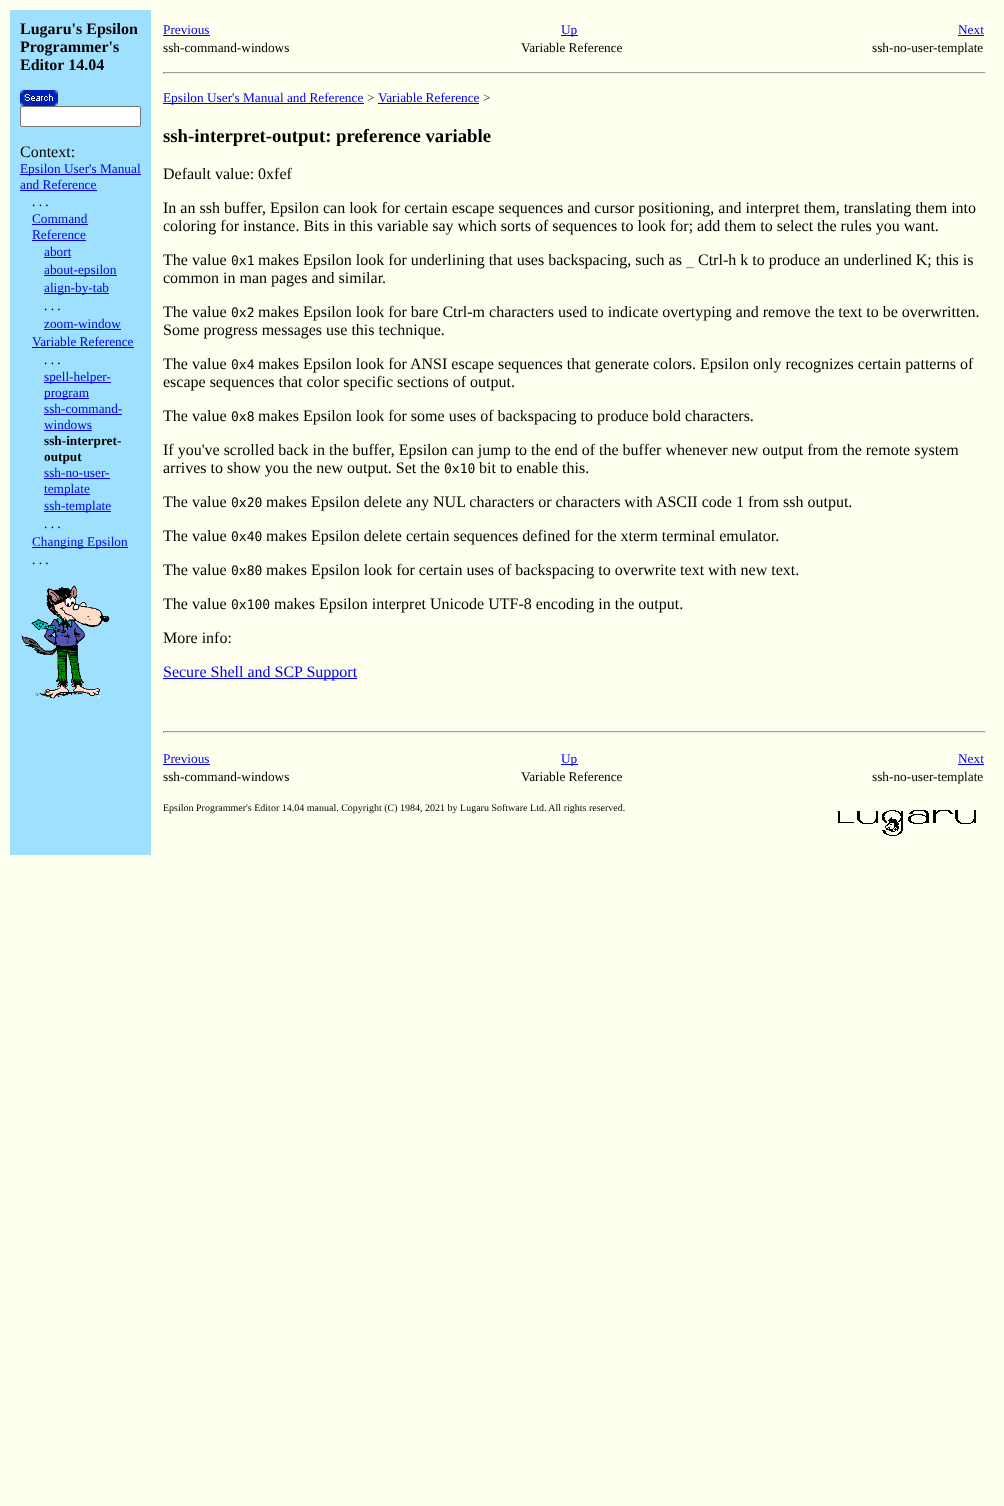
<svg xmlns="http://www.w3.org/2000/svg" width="1004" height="1506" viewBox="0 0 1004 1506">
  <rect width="100%" height="100%" fill="#fffff0"/>
  <path d="M10 10h141v845H10z" fill="#a0e0ff"/>
  <image x="20" y="90" width="38" height="16" href="img/1.png"/>
  <rect x="20.5" y="106.5" width="120" height="20" rx="1.5" fill="#fff" stroke="#767676"/>
  <path d="M20 174h121v1H20z" fill="#00e"/>
  <path d="M20 190h77v1H20z" fill="#00e"/>
  <path d="M32 224h56v1H32z" fill="#00e"/>
  <path d="M32 240h54v1H32z" fill="#00e"/>
  <path d="M44 257h27v1H44z" fill="#00e"/>
  <path d="M44 275h73v1H44z" fill="#00e"/>
  <path d="M44 293h65v1H44z" fill="#00e"/>
  <path d="M44 329h77v1H44z" fill="#00e"/>
  <path d="M32 347h102v1H32z" fill="#00e"/>
  <path d="M44 382h67v1H44z" fill="#00e"/>
  <path d="M44 398h45v1H44z" fill="#00e"/>
  <path d="M44 414h78v1H44z" fill="#00e"/>
  <path d="M44 430h48v1H44z" fill="#00e"/>
  <path d="M44 478h66v1H44z" fill="#00e"/>
  <path d="M44 494h46v1H44z" fill="#00e"/>
  <path d="M44 511h67v1H44z" fill="#00e"/>
  <path d="M32 547h96v1H32z" fill="#00e"/>
  <image x="21" y="585" width="89" height="114" href="img/2.png"/>
  <path d="M163 35h47v1H163z" fill="#00e"/>
  <path d="M561 35h17v1H561z" fill="#00e"/>
  <path d="M958 35h26v1H958z" fill="#00e"/>
  <path d="M163 72h823v1H163z" fill="#9f9f9f"/>
  <path d="M985 72h1v2H985z" fill="#eee"/>
  <path d="M163 73h823v1H163z" fill="#eee"/>
  <path d="M163 72h1v2H163z" fill="#9f9f9f"/>
  <path d="M163 103h201v1H163z" fill="#00e"/>
  <path d="M378 103h101v1H378z" fill="#00e"/>
  <path d="M163 678h194v1H163z" fill="#00e"/>
  <path d="M163 731h823v1H163z" fill="#9f9f9f"/>
  <path d="M985 731h1v2H985z" fill="#eee"/>
  <path d="M163 732h823v1H163z" fill="#eee"/>
  <path d="M163 731h1v2H163z" fill="#9f9f9f"/>
  <path d="M163 764h47v1H163z" fill="#00e"/>
  <path d="M561 764h17v1H561z" fill="#00e"/>
  <path d="M958 764h26v1H958z" fill="#00e"/>
  <image x="838" y="810" width="138" height="26" href="img/3.png"/>
  <g font-family="Liberation Serif" font-size="16" font-weight="bold" fill="#000">
    <text x="20" y="34">Lugaru's Epsilon</text>
    <text x="20" y="52">Programmer's</text>
    <text x="20" y="70">Editor 14.04</text>
  </g>
  <text x="20" y="157" font-family="Liberation Serif" font-size="16" fill="#000">Context:</text>
  <g font-family="Liberation Serif" font-size="13.3" fill="#00e">
    <text x="20" y="173">Epsilon User's Manual</text>
    <text x="20" y="189">and Reference</text>
  </g>
  <text x="32" y="206" font-family="Liberation Serif" font-size="13.3" fill="#000">. . .</text>
  <g font-family="Liberation Serif" font-size="13.3" fill="#00e">
    <text x="32" y="223">Command</text>
    <text x="32" y="239">Reference</text>
    <text x="44" y="256">abort</text>
    <text x="44" y="274">about-epsilon</text>
    <text x="44" y="292">align-by-tab</text>
  </g>
  <text x="44" y="310" font-family="Liberation Serif" font-size="13.3" fill="#000">. . .</text>
  <g font-family="Liberation Serif" font-size="13.3" fill="#00e">
    <text x="44" y="328">zoom-window</text>
    <text x="32" y="346">Variable Reference</text>
  </g>
  <text x="44" y="364" font-family="Liberation Serif" font-size="13.3" fill="#000">. . .</text>
  <g font-family="Liberation Serif" font-size="13.3" fill="#00e">
    <text x="44" y="381">spell-helper-</text>
    <text x="44" y="397">program</text>
    <text x="44" y="413">ssh-command-</text>
    <text x="44" y="429">windows</text>
  </g>
  <g font-family="Liberation Serif" font-size="13.3" font-weight="bold" fill="#000">
    <text x="44" y="445">ssh-interpret-</text>
    <text x="44" y="461">output</text>
  </g>
  <g font-family="Liberation Serif" font-size="13.3" fill="#00e">
    <text x="44" y="477">ssh-no-user-</text>
    <text x="44" y="493">template</text>
    <text x="44" y="510">ssh-template</text>
  </g>
  <text x="44" y="528" font-family="Liberation Serif" font-size="13.3" fill="#000">. . .</text>
  <text x="32" y="546" font-family="Liberation Serif" font-size="13.3" fill="#00e">Changing Epsilon</text>
  <text x="32" y="564" font-family="Liberation Serif" font-size="13.3" fill="#000">. . .</text>
  <g font-family="Liberation Serif" font-size="13.3" fill="#00e">
    <text x="163" y="34">Previous</text>
    <text x="561" y="34">Up</text>
    <text x="958" y="34">Next</text>
  </g>
  <g font-family="Liberation Serif" font-size="13.3" fill="#000">
    <text x="163" y="52">ssh-command-windows</text>
    <text x="521" y="52">Variable Reference</text>
    <text x="872" y="52">ssh-no-user-template</text>
  </g>
  <text x="163" y="102" font-family="Liberation Serif" font-size="13.3" fill="#00e">Epsilon User's Manual and Reference</text>
  <text x="367" y="102" font-family="Liberation Serif" font-size="13.3" fill="#000">&gt;</text>
  <text x="378" y="102" font-family="Liberation Serif" font-size="13.3" fill="#00e">Variable Reference</text>
  <text x="483" y="102" font-family="Liberation Serif" font-size="13.3" fill="#000">&gt;</text>
  <text x="163" y="142" font-family="Liberation Serif" font-size="18.75" font-weight="bold" fill="#000">ssh-interpret-output: preference variable</text>
  <g font-family="Liberation Serif" font-size="16" fill="#000">
    <text x="163" y="179">Default value: 0xfef</text>
    <text x="163" y="213">In an ssh buffer, Epsilon can look for certain escape sequences and cursor positioning, and interpret them, translating them into</text>
    <text x="163" y="231">coloring for instance. Bits in this variable say which sorts of sequences to look for; add them to select the rules you want.</text>
    <text x="163" y="265">The value</text>
  </g>
  <text x="231" y="265" font-family="DejaVu Sans Mono" font-size="13" fill="#000">0x1</text>
  <g font-family="Liberation Serif" font-size="16" fill="#000">
    <text x="258" y="265">makes Epsilon look for underlining that uses backspacing, such as</text>
    <text x="698" y="265">Ctrl-h k to produce an underlined K; this is</text>
  </g>
  <text x="686" y="265" font-family="DejaVu Sans Mono" font-size="13" fill="#000">_</text>
  <g font-family="Liberation Serif" font-size="16" fill="#000">
    <text x="163" y="283">common in man pages and similar.</text>
    <text x="163" y="317">The value</text>
  </g>
  <text x="231" y="317" font-family="DejaVu Sans Mono" font-size="13" fill="#000">0x2</text>
  <g font-family="Liberation Serif" font-size="16" fill="#000">
    <text x="258" y="317">makes Epsilon look for bare Ctrl-m characters used to indicate overtyping and remove the text to be overwritten.</text>
    <text x="163" y="335">Some progress messages use this technique.</text>
    <text x="163" y="369">The value</text>
  </g>
  <text x="231" y="369" font-family="DejaVu Sans Mono" font-size="13" fill="#000">0x4</text>
  <g font-family="Liberation Serif" font-size="16" fill="#000">
    <text x="258" y="369">makes Epsilon look for ANSI escape sequences that generate colors. Epsilon only recognizes certain patterns of</text>
    <text x="163" y="387">escape sequences that color specific sections of output.</text>
    <text x="163" y="421">The value</text>
  </g>
  <text x="231" y="421" font-family="DejaVu Sans Mono" font-size="13" fill="#000">0x8</text>
  <g font-family="Liberation Serif" font-size="16" fill="#000">
    <text x="258" y="421">makes Epsilon look for some uses of backspacing to produce bold characters.</text>
    <text x="163" y="455">If you've scrolled back in the buffer, Epsilon can jump to the end of the buffer whenever new output from the remote system</text>
    <text x="163" y="473">arrives to show you the new output. Set the</text>
  </g>
  <text x="444" y="473" font-family="DejaVu Sans Mono" font-size="13" fill="#000">0x10</text>
  <g font-family="Liberation Serif" font-size="16" fill="#000">
    <text x="479" y="473">bit to enable this.</text>
    <text x="163" y="507">The value</text>
  </g>
  <text x="231" y="507" font-family="DejaVu Sans Mono" font-size="13" fill="#000">0x20</text>
  <g font-family="Liberation Serif" font-size="16" fill="#000">
    <text x="266" y="507">makes Epsilon delete any NUL characters or characters with ASCII code 1 from ssh output.</text>
    <text x="163" y="541">The value</text>
  </g>
  <text x="231" y="541" font-family="DejaVu Sans Mono" font-size="13" fill="#000">0x40</text>
  <g font-family="Liberation Serif" font-size="16" fill="#000">
    <text x="266" y="541">makes Epsilon delete certain sequences defined for the xterm terminal emulator.</text>
    <text x="163" y="575">The value</text>
  </g>
  <text x="231" y="575" font-family="DejaVu Sans Mono" font-size="13" fill="#000">0x80</text>
  <g font-family="Liberation Serif" font-size="16" fill="#000">
    <text x="266" y="575">makes Epsilon look for certain uses of backspacing to overwrite text with new text.</text>
    <text x="163" y="609">The value</text>
  </g>
  <text x="231" y="609" font-family="DejaVu Sans Mono" font-size="13" fill="#000">0x100</text>
  <g font-family="Liberation Serif" font-size="16" fill="#000">
    <text x="274" y="609">makes Epsilon interpret Unicode UTF-8 encoding in the output.</text>
    <text x="163" y="643">More info:</text>
  </g>
  <text x="163" y="677" font-family="Liberation Serif" font-size="16" fill="#00e">Secure Shell and SCP Support</text>
  <g font-family="Liberation Serif" font-size="13.3" fill="#00e">
    <text x="163" y="763">Previous</text>
    <text x="561" y="763">Up</text>
    <text x="958" y="763">Next</text>
  </g>
  <g font-family="Liberation Serif" font-size="13.3" fill="#000">
    <text x="163" y="781">ssh-command-windows</text>
    <text x="521" y="781">Variable Reference</text>
    <text x="872" y="781">ssh-no-user-template</text>
  </g>
  <text x="163" y="811" font-family="Liberation Serif" font-size="10" fill="#000">Epsilon Programmer's Editor 14.04 manual. Copyright (C) 1984, 2021 by Lugaru Software Ltd. All rights reserved.</text>
</svg>
